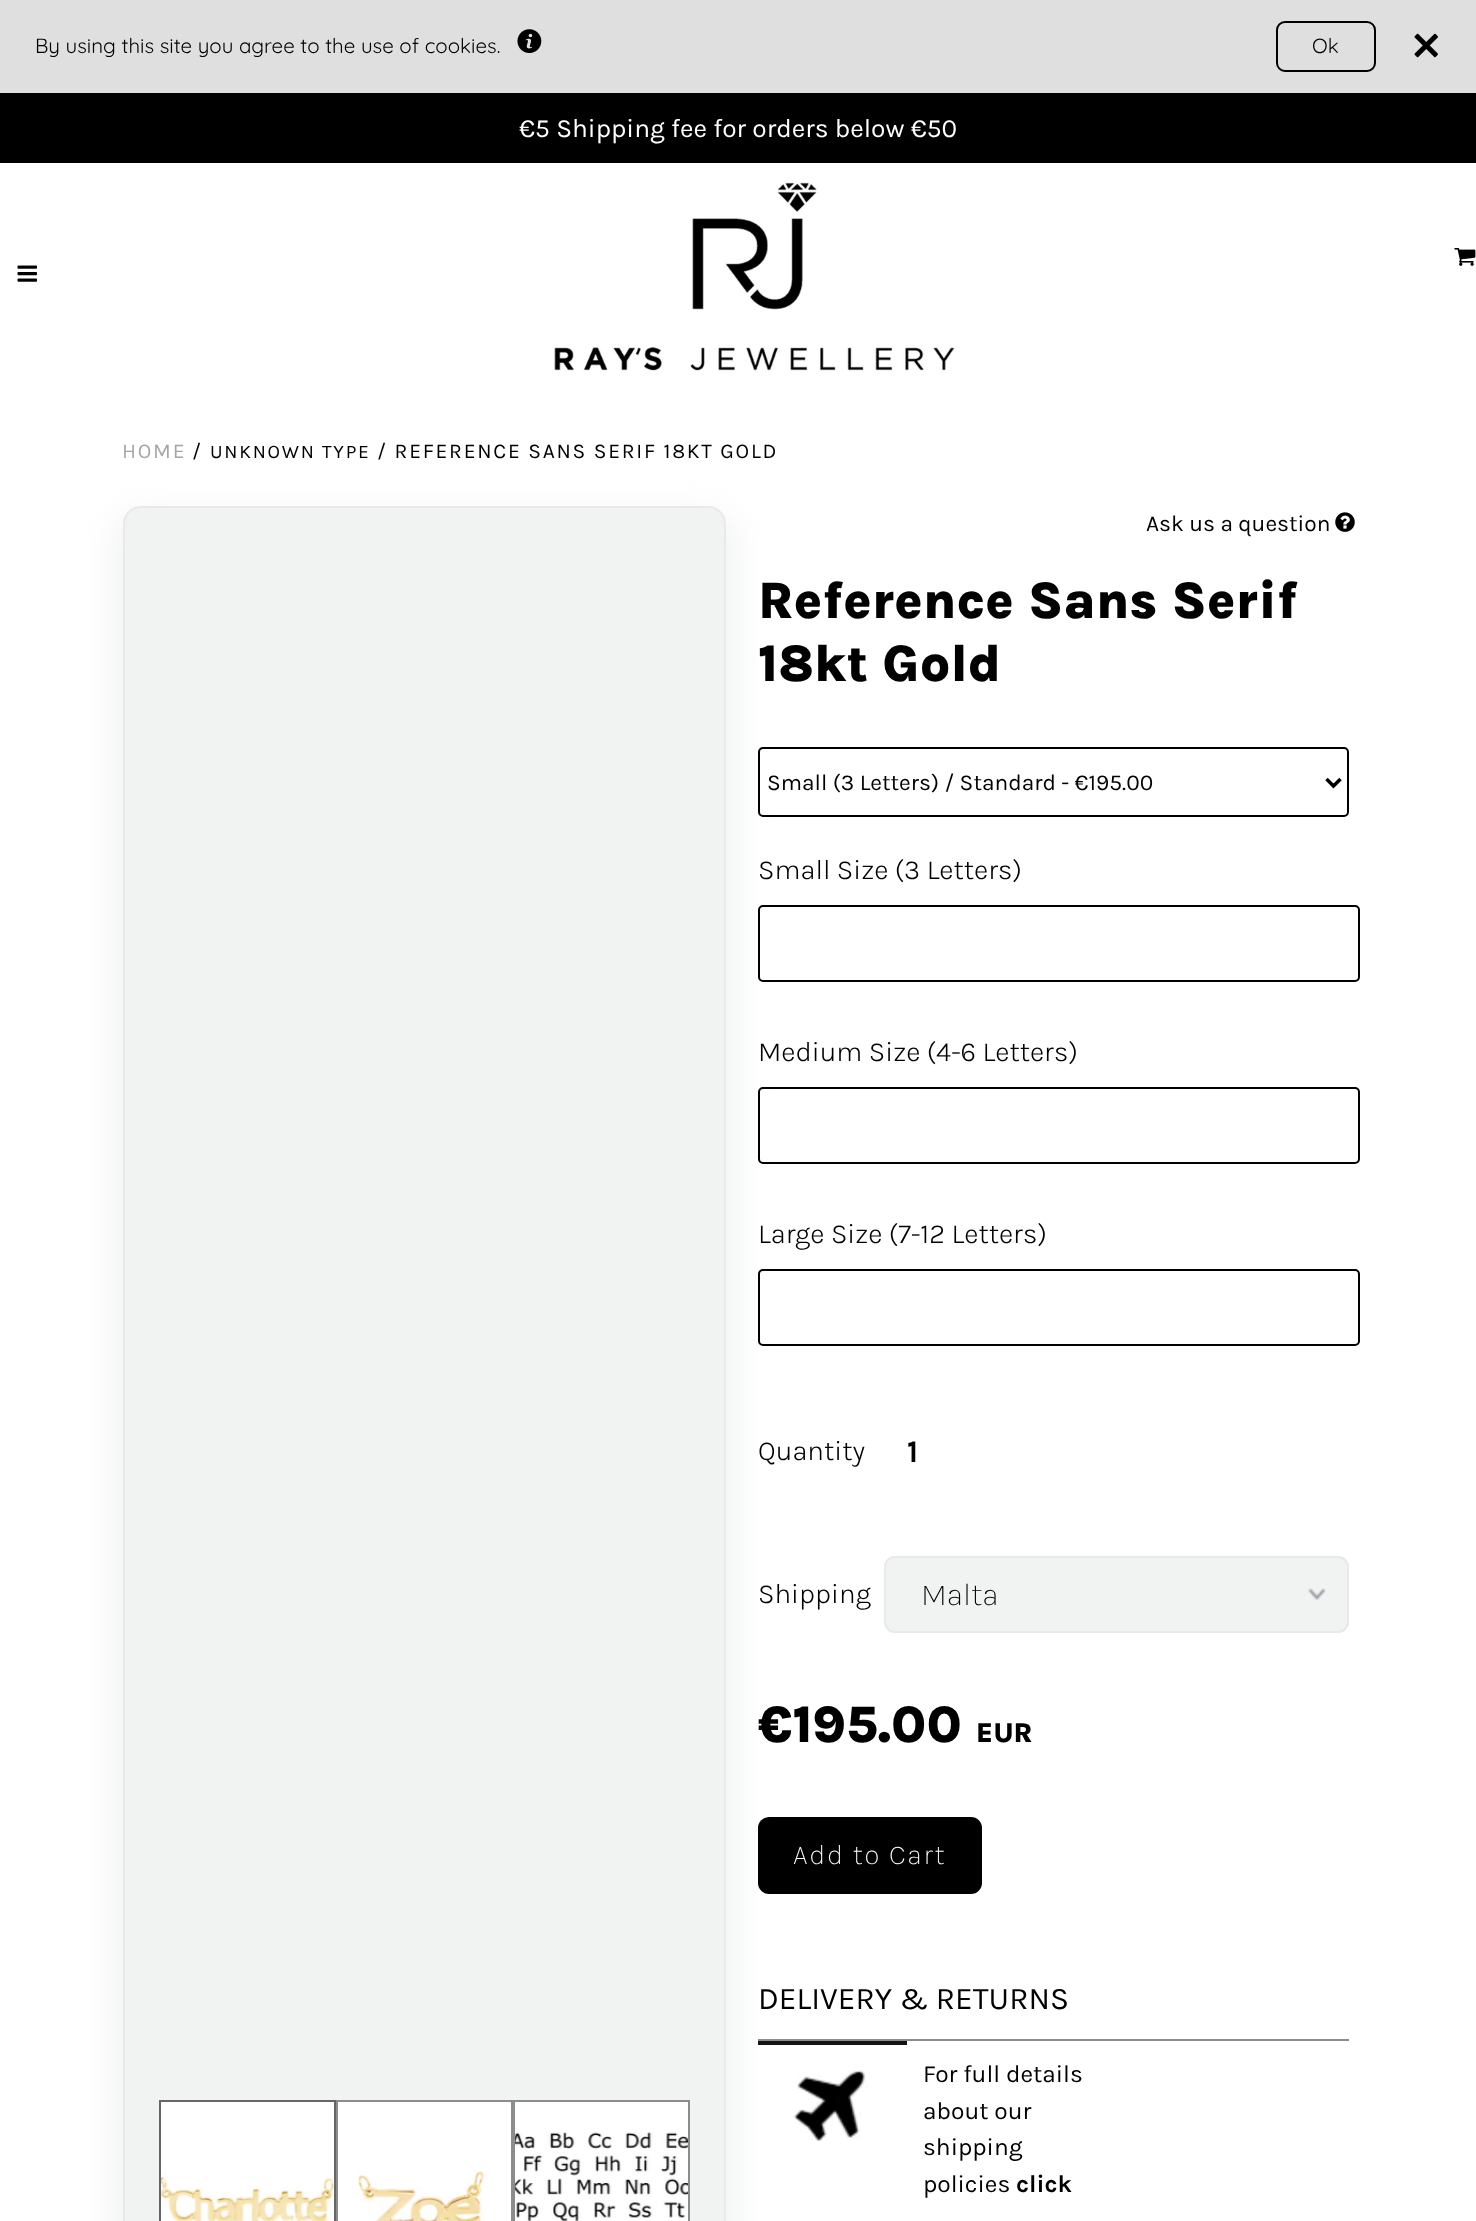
<svg xmlns="http://www.w3.org/2000/svg" width="1476" height="2221" viewBox="0 0 1476 2221">
  <rect width="100%" height="100%" fill="#fff"/>
  <path d="M0 0h1476v93H0z" fill="#dfdfdf"/>
  <image x="517" y="29" width="25" height="25" href="img/1.png"/>
  <rect x="1277" y="22" width="98" height="49" rx="8" fill="none" stroke="#000" stroke-width="2"/>
  <image x="1414" y="33" width="24" height="25" href="img/2.png"/>
  <path d="M0 93h1476v70H0z" fill="#000"/>
  <image x="553" y="182" width="402" height="189" href="img/3.png"/>
  <image x="1454" y="248" width="22" height="18" href="img/4.png"/>
  <image x="17" y="265" width="20" height="17" href="img/5.png"/>
  <rect x="114" y="515" width="621" height="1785" rx="26" fill="#f1f2f2" filter="blur(17.5px)"/>
  <rect x="124" y="507" width="601" height="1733" rx="17" fill="#f1f2f2" stroke="#e9e9ea" stroke-width="2"/>
  <path d="M161 2102h173v70H161z" fill="#fff"/>
  <image x="161" y="2172" width="173" height="49" href="img/6.png"/>
  <path d="M160 2101h175v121H160z" fill="none" stroke="#666" stroke-width="2"/>
  <path d="M337 2101h175v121H337z" fill="#fff" stroke="#8a8c8e" stroke-width="2"/>
  <image x="357" y="2170" width="133" height="51" href="img/7.png"/>
  <path d="M515 2102h173v30H515z" fill="#fff"/>
  <path d="M514 2101h175v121H514z" fill="none" stroke="#8a8c8e" stroke-width="2"/>
  <image x="515" y="2132" width="173" height="89" href="img/8.png"/>
  <image x="1335" y="512" width="20" height="20" href="img/9.png"/>
  <rect x="759" y="748" width="589" height="68" rx="4" fill="none" stroke="#000" stroke-width="2"/>
  <path d="M1326.5 779L1333.5 786L1340.5 779" fill="none" stroke="#000" stroke-width="3.5"/>
  <rect x="759" y="906" width="600" height="75" rx="4" fill="none" stroke="#000" stroke-width="2"/>
  <rect x="759" y="1088" width="600" height="75" rx="4" fill="none" stroke="#000" stroke-width="2"/>
  <rect x="759" y="1270" width="600" height="75" rx="4" fill="none" stroke="#000" stroke-width="2"/>
  <rect x="884" y="1556" width="465" height="77" rx="11" fill="#f1f2f2"/>
  <image x="1308" y="1588" width="18" height="12" href="img/10.png"/>
  <rect x="885" y="1557" width="463" height="75" rx="10" fill="none" stroke="#e9e9ea" stroke-width="2"/>
  <rect x="758" y="1817" width="224" height="77" rx="11" fill="#000"/>
  <path d="M758 2039h591v2H758z" fill="#8a8c8e"/>
  <path d="M758 2041h149v4H758z" fill="#131313"/>
  <image x="794" y="2069" width="74" height="72" href="img/11.png"/>
  <g font-family="Quicksand" font-size="20.5" fill="#000">
    <text x="35" y="53">By using this site you agree to the use of cookies.</text>
    <text x="1312" y="53">Ok</text>
  </g>
  <text x="519" y="137" font-family="Karla" font-size="26.25" fill="#fff">€5 Shipping fee for orders below €50</text>
  <text x="122" y="458" font-family="Karla" font-size="21" letter-spacing="1.75" fill="#a3a5a8">HOME</text>
  <text x="192" y="458" font-family="Karla" font-size="21" letter-spacing="1.75" fill="#000">/</text>
  <text x="210" y="458" font-family="Karla" font-size="19.25" letter-spacing="1.75" fill="#000">UNKNOWN TYPE</text>
  <text x="377" y="458" font-family="Karla" font-size="21" letter-spacing="1.75" fill="#000">/ REFERENCE SANS SERIF 18KT GOLD</text>
  <text x="1146" y="531" font-family="Karla" font-size="22.75" fill="#000">Ask us a question</text>
  <g font-family="Karla" font-size="52.5" font-weight="800" fill="#000">
    <text x="758" y="618">Reference Sans Serif</text>
    <text x="758" y="681">18kt Gold</text>
  </g>
  <text x="767" y="790" font-family="Karla" font-size="22.75" fill="#000">Small (3 Letters) / Standard - €195.00</text>
  <g font-family="Karla" font-size="28" font-weight="300" fill="#000">
    <text x="758" y="879">Small Size (3 Letters)</text>
    <text x="758" y="1061">Medium Size (4-6 Letters)</text>
    <text x="758" y="1243">Large Size (7-12 Letters)</text>
    <text x="758" y="1460">Quantity</text>
  </g>
  <text x="907" y="1462" font-family="'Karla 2'" font-size="31.5" font-weight="bold" fill="#000">1</text>
  <text x="758" y="1603" font-family="Karla" font-size="28" font-weight="300" fill="#000">Shipping</text>
  <text x="921" y="1605" font-family="Karla" font-size="31.5" font-weight="200" fill="#000">Malta</text>
  <text x="758" y="1742" font-family="Karla" font-size="52.5" font-weight="800" fill="#000">€195.00</text>
  <text x="976" y="1742" font-family="Karla" font-size="28" font-weight="800" fill="#000">EUR</text>
  <text x="793" y="1864" font-family="Karla" font-size="28" font-weight="200" letter-spacing="1.75" fill="#fff">Add to Cart</text>
  <text x="758" y="2009" font-family="Karla" font-size="31.5" fill="#000">DELIVERY &amp; RETURNS</text>
  <g font-family="Karla" font-size="24.5" fill="#000">
    <text x="923" y="2082">For full details</text>
    <text x="923" y="2119">about our</text>
    <text x="923" y="2155">shipping</text>
    <text x="923" y="2192">policies</text>
  </g>
  <text x="1016" y="2192" font-family="Karla" font-size="24.5" font-weight="bold" fill="#000">click</text>
</svg>
